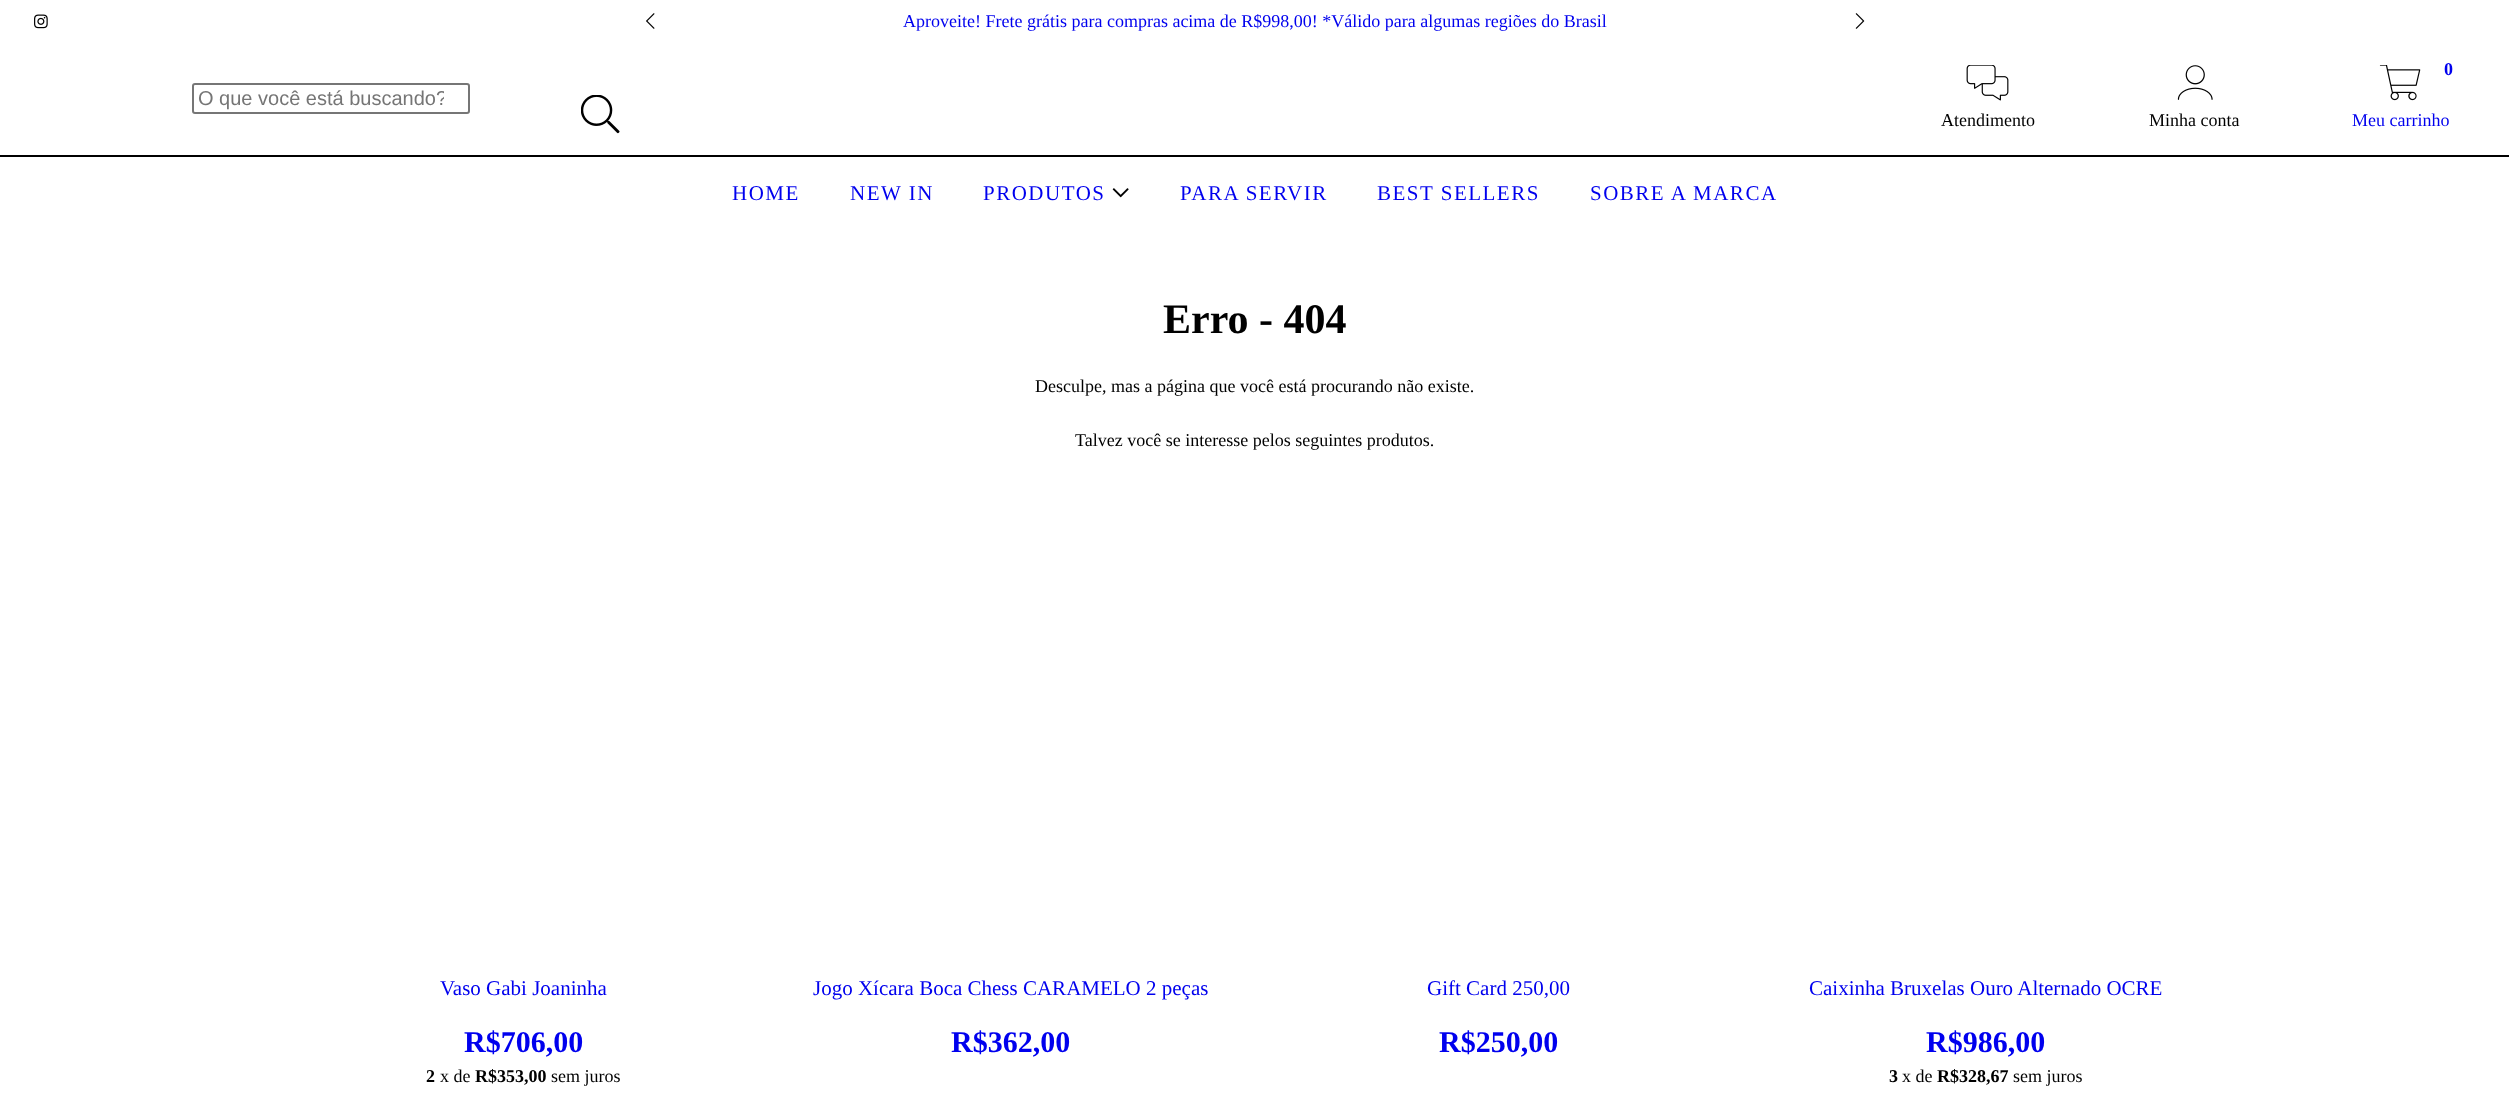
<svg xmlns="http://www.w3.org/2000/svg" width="2509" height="1116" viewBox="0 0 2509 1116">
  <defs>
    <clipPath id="clip1"><path d="M198 87h246v23H198z"/></clipPath>
  </defs>
  <rect width="100%" height="100%" fill="#fff"/>
  <image x="34" y="14" width="14" height="15" href="img/1.png"/>
  <image x="646" y="13" width="9" height="16" href="img/2.png"/>
  <image x="1855" y="13" width="10" height="16" href="img/3.png"/>
  <rect x="193" y="84" width="276" height="29" rx="2" fill="none" stroke="#767676" stroke-width="2"/>
  <image x="581" y="95" width="39" height="39" href="img/4.png"/>
  <image x="1966" y="65" width="43" height="36" href="img/5.png"/>
  <image x="2177" y="65" width="36" height="35" href="img/6.png"/>
  <image x="2379" y="65" width="42" height="36" href="img/7.png"/>
  <path d="M0 155h2509v2H0z" fill="#000"/>
  <image x="1112" y="188" width="17" height="10" href="img/8.png"/>
  <text x="903" y="27" font-family="Liberation Serif" font-size="18" fill="#00e">Aproveite! Frete grátis para compras acima de R$998,00! *Válido para algumas regiões do Brasil</text>
  <g clip-path="url(#clip1)">
    <text x="198" y="105" font-family="Liberation Sans" font-size="20" fill="#757575">O que você está buscando?</text>
  </g>
  <g font-family="Liberation Serif" font-size="18" fill="#000">
    <text x="1941" y="126">Atendimento</text>
    <text x="2149" y="126">Minha conta</text>
  </g>
  <text x="2444" y="75" font-family="Liberation Serif" font-size="18" font-weight="bold" fill="#00e">0</text>
  <text x="2352" y="126" font-family="Liberation Serif" font-size="18" fill="#00e">Meu carrinho</text>
  <g font-family="Liberation Serif" font-size="21" letter-spacing="1.5" fill="#00e">
    <text x="732" y="200">HOME</text>
    <text x="850" y="200">NEW IN</text>
    <text x="983" y="200">PRODUTOS</text>
    <text x="1180" y="200">PARA SERVIR</text>
    <text x="1377" y="200">BEST SELLERS</text>
    <text x="1590" y="200">SOBRE A MARCA</text>
  </g>
  <text x="1163" y="333" font-family="Liberation Serif" font-size="42" font-weight="bold" fill="#000">Erro - 404</text>
  <g font-family="Liberation Serif" font-size="18" fill="#000">
    <text x="1035" y="392">Desculpe, mas a página que você está procurando não existe.</text>
    <text x="1075" y="446">Talvez você se interesse pelos seguintes produtos.</text>
  </g>
  <text x="440" y="995" font-family="Liberation Serif" font-size="21" fill="#00e">Vaso Gabi Joaninha</text>
  <text x="464" y="1052" font-family="Liberation Serif" font-size="30" font-weight="bold" fill="#00e">R$706,00</text>
  <text x="426" y="1082" font-family="Liberation Serif" font-size="18" font-weight="bold" fill="#000">2</text>
  <text x="440" y="1082" font-family="Liberation Serif" font-size="18" fill="#000">x de</text>
  <text x="475" y="1082" font-family="Liberation Serif" font-size="18" font-weight="bold" fill="#000">R$353,00</text>
  <text x="551" y="1082" font-family="Liberation Serif" font-size="18" fill="#000">sem juros</text>
  <text x="813" y="995" font-family="Liberation Serif" font-size="21" fill="#00e">Jogo Xícara Boca Chess CARAMELO 2 peças</text>
  <text x="951" y="1052" font-family="Liberation Serif" font-size="30" font-weight="bold" fill="#00e">R$362,00</text>
  <text x="1427" y="995" font-family="Liberation Serif" font-size="21" fill="#00e">Gift Card 250,00</text>
  <text x="1439" y="1052" font-family="Liberation Serif" font-size="30" font-weight="bold" fill="#00e">R$250,00</text>
  <text x="1809" y="995" font-family="Liberation Serif" font-size="21" fill="#00e">Caixinha Bruxelas Ouro Alternado OCRE</text>
  <text x="1926" y="1052" font-family="Liberation Serif" font-size="30" font-weight="bold" fill="#00e">R$986,00</text>
  <text x="1889" y="1082" font-family="Liberation Serif" font-size="18" font-weight="bold" fill="#000">3</text>
  <text x="1902" y="1082" font-family="Liberation Serif" font-size="18" fill="#000">x de</text>
  <text x="1937" y="1082" font-family="Liberation Serif" font-size="18" font-weight="bold" fill="#000">R$328,67</text>
  <text x="2013" y="1082" font-family="Liberation Serif" font-size="18" fill="#000">sem juros</text>
</svg>
